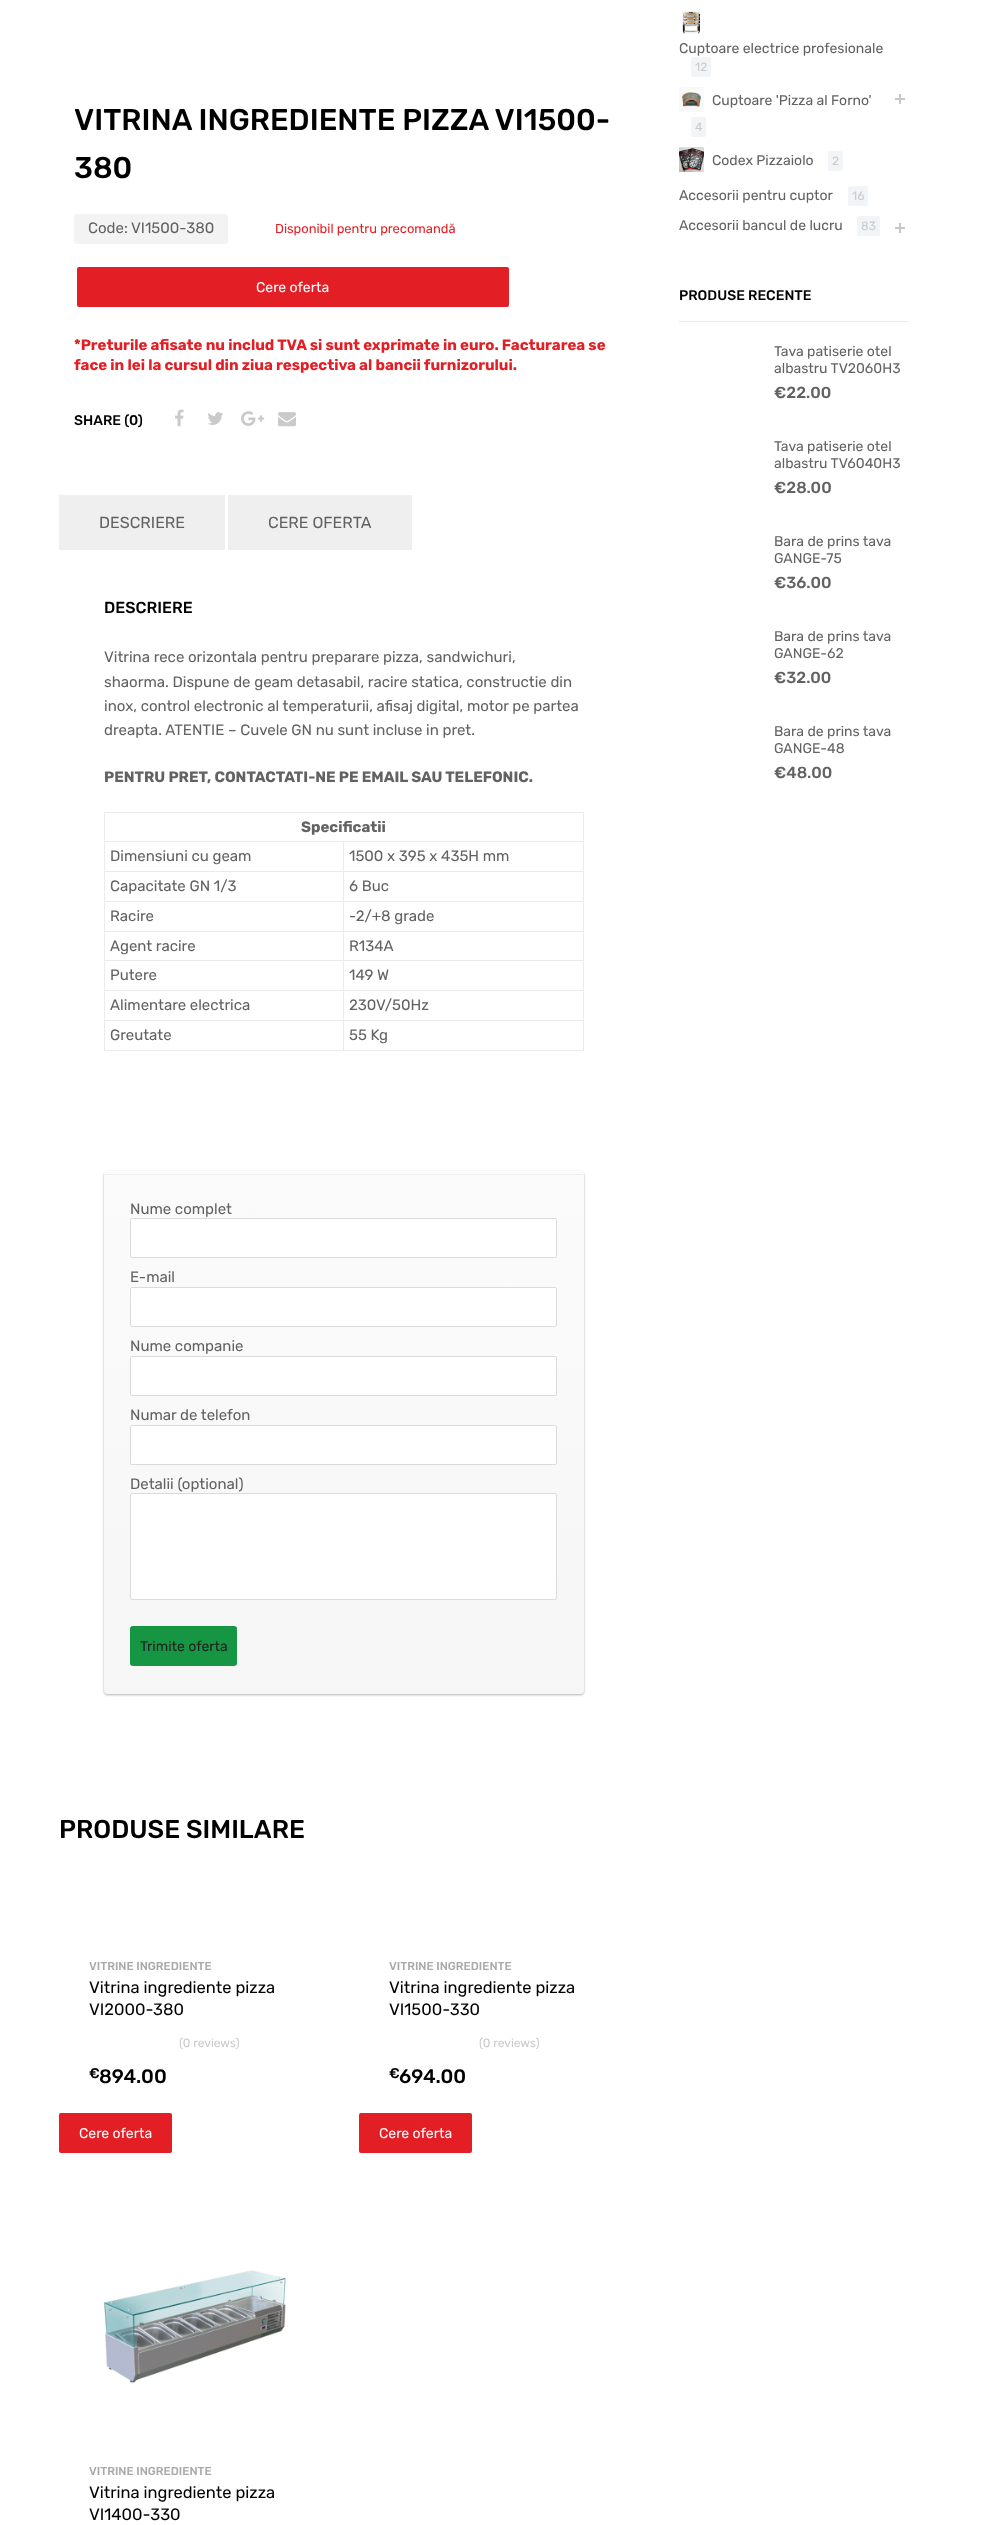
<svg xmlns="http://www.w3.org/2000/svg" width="987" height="2525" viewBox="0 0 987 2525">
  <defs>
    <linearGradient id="g1" gradientUnits="userSpaceOnUse" x1="344" y1="1171" x2="344" y2="1694"><stop offset="0" stop-color="#fcfbfc"/><stop offset="1" stop-color="#f7f6f7"/></linearGradient>
  </defs>
  <rect width="100%" height="100%" fill="#fff"/>
  <rect x="74" y="214" width="154" height="30" rx="3" fill="#f3f3f3"/>
  <rect x="77" y="267" width="432" height="40" rx="2" fill="#e31e24"/>
  <image x="175" y="409" width="9" height="18" href="img/1.png"/>
  <image x="207" y="412" width="16" height="13" href="img/2.png"/>
  <image x="241" y="411" width="24" height="15" href="img/3.png"/>
  <image x="278" y="412" width="18" height="15" href="img/4.png"/>
  <path d="M59 495h166v55H59z" fill="#efefef"/>
  <path d="M228 495h184v55H228z" fill="#efefef"/>
  <path d="M104 812h480v1H104z" fill="#ebebeb"/>
  <path d="M104 812h1v239H104z" fill="#ebebeb"/>
  <path d="M583 813h1v238H583z" fill="#ebebeb"/>
  <path d="M105 841h479v1H105z" fill="#ebebeb"/>
  <path d="M343 842h1v209H343z" fill="#ebebeb"/>
  <path d="M105 871h479v1H105z" fill="#ebebeb"/>
  <path d="M105 901h479v1H105z" fill="#ebebeb"/>
  <path d="M105 931h479v1H105z" fill="#ebebeb"/>
  <path d="M105 960h479v1H105z" fill="#ebebeb"/>
  <path d="M105 990h479v1H105z" fill="#ebebeb"/>
  <path d="M105 1020h479v1H105z" fill="#ebebeb"/>
  <path d="M105 1050h479v1H105z" fill="#ebebeb"/>
  <rect x="104" y="1172" width="480" height="523" rx="4" fill="#0000004d" filter="blur(1px)"/>
  <rect x="104" y="1171" width="480" height="523" rx="4" fill="url(#g1)"/>
  <path d="M108 1172H580C582 1172 584 1174 584 1176C584 1173 583 1171 580 1171H108C105 1171 104 1173 104 1176C104 1174 106 1172 108 1172Z" fill="#fff"/>
  <path d="M104 1174h480v1H104z" fill="#eee"/>
  <rect x="130.5" y="1218.5" width="426" height="39" rx="1.5" fill="#fff" stroke="#dbdbdb"/>
  <rect x="130.5" y="1287.5" width="426" height="39" rx="1.5" fill="#fff" stroke="#dbdbdb"/>
  <rect x="130.5" y="1356.5" width="426" height="39" rx="1.5" fill="#fff" stroke="#dbdbdb"/>
  <rect x="130.5" y="1425.5" width="426" height="39" rx="1.5" fill="#fff" stroke="#dbdbdb"/>
  <rect x="130.5" y="1493.5" width="426" height="106" rx="1.5" fill="#fff" stroke="#dbdbdb"/>
  <rect x="130" y="1626" width="107" height="40" rx="3" fill="#169543"/>
  <rect x="59" y="2113" width="113" height="40" rx="2" fill="#e31e24"/>
  <rect x="359" y="2113" width="113" height="40" rx="2" fill="#e31e24"/>
  <image x="104" y="2270" width="182" height="113" href="img/5.png"/>
  <image x="682" y="11" width="19" height="23" href="img/6.png"/>
  <rect x="691" y="57" width="20" height="20" rx="2" fill="#f1f5f7"/>
  <image x="679" y="87" width="25" height="25" href="img/7.png"/>
  <path d="M895 98h10v2H895z" fill="#c7c7c7"/>
  <path d="M899 94h2v10H899z" fill="#c7c7c7"/>
  <rect x="691" y="117" width="15" height="20" rx="2" fill="#f1f5f7"/>
  <image x="679" y="147" width="25" height="25" href="img/8.png"/>
  <rect x="828" y="151" width="15" height="20" rx="2" fill="#f1f5f7"/>
  <rect x="848" y="186" width="20" height="20" rx="2" fill="#f1f5f7"/>
  <rect x="857" y="216" width="23" height="20" rx="2" fill="#f1f5f7"/>
  <path d="M895 227h10v2H895z" fill="#c7c7c7"/>
  <path d="M899 223h2v10H899z" fill="#c7c7c7"/>
  <path d="M679 321h230v1H679z" fill="#ebebeb"/>
  <g font-family="Rubik" font-size="30" font-weight="500" fill="#000">
    <text x="74" y="130">VITRINA INGREDIENTE PIZZA VI1500-</text>
    <text x="74" y="178">380</text>
  </g>
  <g font-family="Rubik" font-size="15" fill="#626262">
    <text x="88" y="233">Code:</text>
    <text x="131" y="233">VI1500-380</text>
  </g>
  <text x="275" y="233" font-family="Rubik" font-size="12.9" fill="#e31e24">Disponibil pentru precomandă</text>
  <text x="256" y="292" font-family="Rubik" font-size="14" fill="#fff">Cere oferta</text>
  <g font-family="Rubik" font-size="15" font-weight="bold" fill="#e31e24">
    <text x="74" y="350">*Preturile afisate nu includ TVA si sunt exprimate in euro. Facturarea se</text>
    <text x="74" y="370">face in lei la cursul din ziua respectiva al bancii furnizorului.</text>
  </g>
  <text x="74" y="425" font-family="Rubik" font-size="14" font-weight="500" fill="#000">SHARE (0)</text>
  <g font-family="Rubik" font-size="16" fill="#626262">
    <text x="99" y="528">DESCRIERE</text>
    <text x="268" y="528">CERE OFERTA</text>
  </g>
  <text x="104" y="613" font-family="Rubik" font-size="16" font-weight="500" fill="#000">DESCRIERE</text>
  <g font-family="Rubik" font-size="15" fill="#626262">
    <text x="104" y="662">Vitrina rece orizontala pentru preparare pizza, sandwichuri,</text>
    <text x="104" y="687">shaorma. Dispune de geam detasabil, racire statica, constructie din</text>
    <text x="104" y="711">inox, control electronic al temperaturii, afisaj digital, motor pe partea</text>
    <text x="104" y="735">dreapta. ATENTIE – Cuvele GN nu sunt incluse in pret.</text>
  </g>
  <g font-family="Rubik" font-size="15" font-weight="bold" fill="#626262">
    <text x="104" y="782">PENTRU PRET, CONTACTATI-NE PE EMAIL SAU TELEFONIC.</text>
    <text x="301" y="832">Specificatii</text>
  </g>
  <g font-family="Rubik" font-size="15" fill="#626262">
    <text x="110" y="861">Dimensiuni cu geam</text>
    <text x="349" y="861">1500 x 395 x 435H mm</text>
    <text x="110" y="891">Capacitate GN 1/3</text>
    <text x="349" y="891">6 Buc</text>
    <text x="110" y="921">Racire</text>
    <text x="349" y="921">-2/+8 grade</text>
    <text x="110" y="951">Agent racire</text>
    <text x="349" y="951">R134A</text>
    <text x="110" y="980">Putere</text>
    <text x="349" y="980">149 W</text>
    <text x="110" y="1010">Alimentare electrica</text>
    <text x="349" y="1010">230V/50Hz</text>
    <text x="110" y="1040">Greutate</text>
    <text x="349" y="1040">55 Kg</text>
    <text x="130" y="1214">Nume complet</text>
    <text x="130" y="1282">E-mail</text>
    <text x="130" y="1351">Nume companie</text>
    <text x="130" y="1420">Numar de telefon</text>
    <text x="130" y="1489">Detalii (optional)</text>
  </g>
  <text x="140" y="1651" font-family="Rubik" font-size="14" fill="#212121">Trimite oferta</text>
  <text x="59" y="1838" font-family="Rubik" font-size="25.75" font-weight="500" fill="#000">PRODUSE SIMILARE</text>
  <text x="89" y="1970" font-family="Rubik" font-size="11.5" font-weight="500" fill="#a9a9a9">VITRINE INGREDIENTE</text>
  <g font-family="Rubik" font-size="16.5" fill="#000">
    <text x="89" y="1993">Vitrina ingrediente pizza</text>
    <text x="89" y="2015">VI2000-380</text>
  </g>
  <text x="179" y="2047" font-family="Rubik" font-size="12" fill="#cacaca">(0 reviews)</text>
  <text x="89" y="2078" font-family="Rubik" font-size="14" font-weight="500" fill="#000">€</text>
  <text x="99" y="2083" font-family="Rubik" font-size="19.5" font-weight="500" fill="#000">894.00</text>
  <text x="79" y="2138" font-family="Rubik" font-size="14" fill="#fff">Cere oferta</text>
  <text x="389" y="1970" font-family="Rubik" font-size="11.5" font-weight="500" fill="#a9a9a9">VITRINE INGREDIENTE</text>
  <g font-family="Rubik" font-size="16.5" fill="#000">
    <text x="389" y="1993">Vitrina ingrediente pizza</text>
    <text x="389" y="2015">VI1500-330</text>
  </g>
  <text x="479" y="2047" font-family="Rubik" font-size="12" fill="#cacaca">(0 reviews)</text>
  <text x="389" y="2078" font-family="Rubik" font-size="14" font-weight="500" fill="#000">€</text>
  <text x="399" y="2083" font-family="Rubik" font-size="19.5" font-weight="500" fill="#000">694.00</text>
  <text x="379" y="2138" font-family="Rubik" font-size="14" fill="#fff">Cere oferta</text>
  <text x="89" y="2475" font-family="Rubik" font-size="11.5" font-weight="500" fill="#a9a9a9">VITRINE INGREDIENTE</text>
  <g font-family="Rubik" font-size="16.5" fill="#000">
    <text x="89" y="2498">Vitrina ingrediente pizza</text>
    <text x="89" y="2520">VI1400-330</text>
  </g>
  <text x="679" y="53" font-family="Rubik" font-size="14" fill="#626262">Cuptoare electrice profesionale</text>
  <text x="695" y="71" font-family="Rubik" font-size="12" fill="#cacaca">12</text>
  <text x="712" y="105" font-family="Rubik" font-size="14" fill="#626262">Cuptoare 'Pizza al Forno'</text>
  <text x="695" y="131" font-family="Rubik" font-size="12" fill="#cacaca">4</text>
  <text x="712" y="165" font-family="Rubik" font-size="14" fill="#626262">Codex Pizzaiolo</text>
  <text x="832" y="165" font-family="Rubik" font-size="12" fill="#cacaca">2</text>
  <text x="679" y="200" font-family="Rubik" font-size="14" fill="#626262">Accesorii pentru cuptor</text>
  <text x="852" y="200" font-family="Rubik" font-size="12" fill="#cacaca">16</text>
  <text x="679" y="230" font-family="Rubik" font-size="14" fill="#626262">Accesorii bancul de lucru</text>
  <text x="861" y="230" font-family="Rubik" font-size="12" fill="#cacaca">83</text>
  <text x="679" y="300" font-family="Rubik" font-size="14" font-weight="500" fill="#000">PRODUSE RECENTE</text>
  <g font-family="Rubik" font-size="14" fill="#626262">
    <text x="774" y="356">Tava patiserie otel</text>
    <text x="774" y="373">albastru TV2060H3</text>
  </g>
  <text x="774" y="398" font-family="Rubik" font-size="16" font-weight="500" fill="#626262">€22.00</text>
  <g font-family="Rubik" font-size="14" fill="#626262">
    <text x="774" y="451">Tava patiserie otel</text>
    <text x="774" y="468">albastru TV6040H3</text>
  </g>
  <text x="774" y="493" font-family="Rubik" font-size="16" font-weight="500" fill="#626262">€28.00</text>
  <g font-family="Rubik" font-size="14" fill="#626262">
    <text x="774" y="546">Bara de prins tava</text>
    <text x="774" y="563">GANGE-75</text>
  </g>
  <text x="774" y="588" font-family="Rubik" font-size="16" font-weight="500" fill="#626262">€36.00</text>
  <g font-family="Rubik" font-size="14" fill="#626262">
    <text x="774" y="641">Bara de prins tava</text>
    <text x="774" y="658">GANGE-62</text>
  </g>
  <text x="774" y="683" font-family="Rubik" font-size="16" font-weight="500" fill="#626262">€32.00</text>
  <g font-family="Rubik" font-size="14" fill="#626262">
    <text x="774" y="736">Bara de prins tava</text>
    <text x="774" y="753">GANGE-48</text>
  </g>
  <text x="774" y="778" font-family="Rubik" font-size="16" font-weight="500" fill="#626262">€48.00</text>
</svg>
